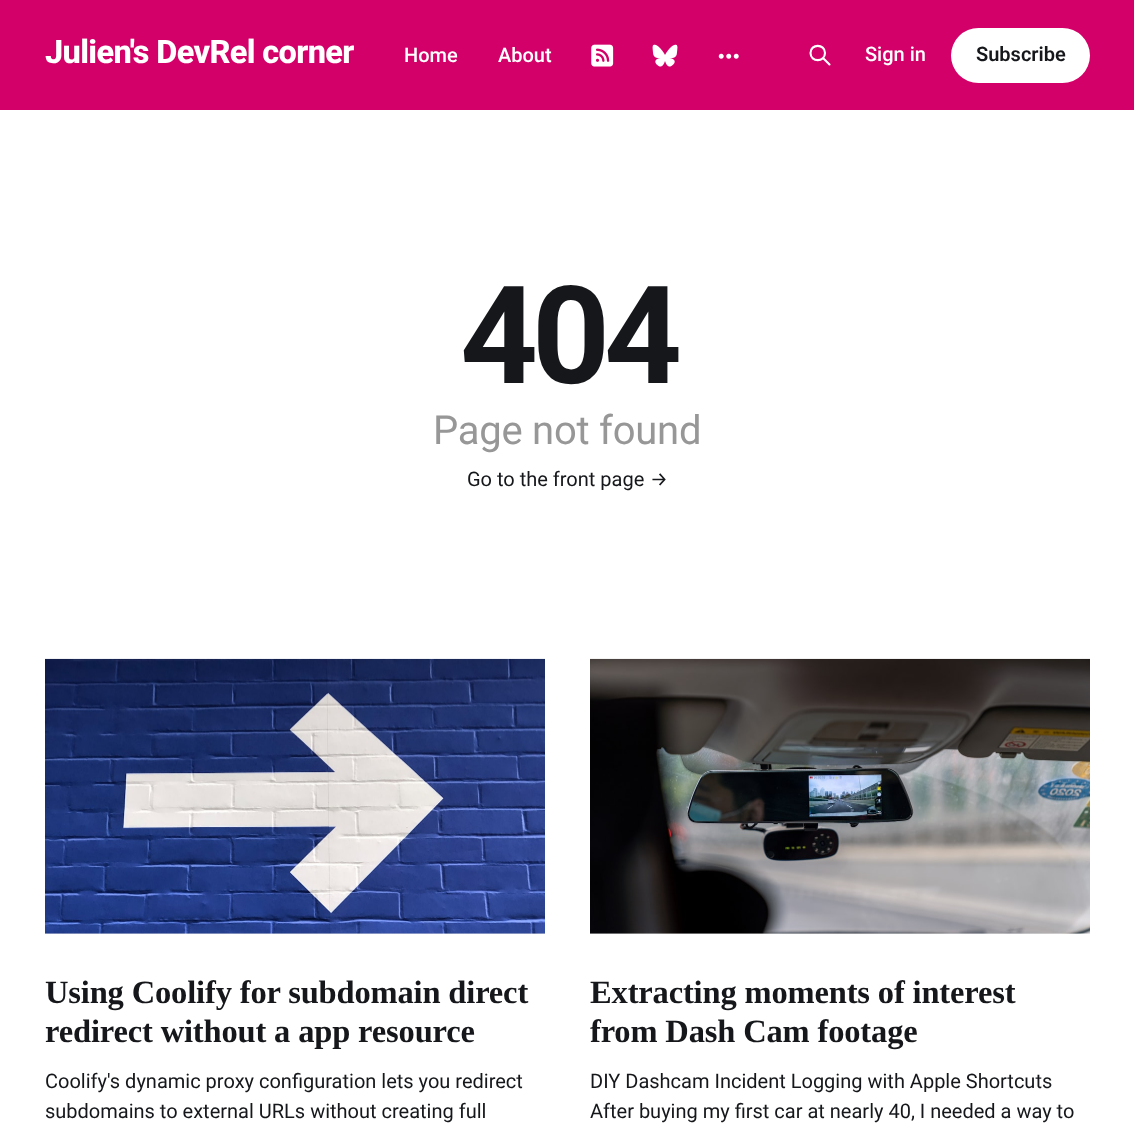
<svg xmlns="http://www.w3.org/2000/svg" width="1134" height="1127" viewBox="0 0 1134 1127">
  <rect width="100%" height="100%" fill="#fff"/>
  <path d="M0 0h1134v110H0z" fill="#d20068"/>
  <image x="591" y="44" width="23" height="23" href="img/1.png"/>
  <image x="652" y="44" width="26" height="23" href="img/2.png"/>
  <image x="718" y="53" width="21" height="6" href="img/3.png"/>
  <path d="M829.5 64.5L823 58M825 53C825 62.5 810.5 62.5 810.5 53C810.5 43.5 825 43.5 825 53Z" fill="none" stroke="#fff" stroke-width="2.1" stroke-linecap="round" stroke-linejoin="round"/>
  <rect x="951" y="28" width="139" height="55" rx="27.5" fill="#fff"/>
  <path d="M45 933h500v1H45z" fill="#f1f1f1"/>
  <image x="45" y="658" width="500" height="276" href="img/4.png"/>
  <path d="M590 933h500v1H590z" fill="#f1f1f1"/>
  <image x="590" y="658" width="500" height="276" href="img/5.png"/>
  <text x="45" y="63" font-family="Roboto" font-size="32.5" font-weight="800" letter-spacing="-0.65" fill="#fff">Julien's DevRel corner</text>
  <g font-family="Roboto" font-size="20" font-weight="500" fill="#fff">
    <text x="404" y="62">Home</text>
    <text x="498" y="62">About</text>
    <text x="865" y="61">Sign in</text>
  </g>
  <text x="976" y="61" font-family="Roboto" font-size="20" font-weight="600" fill="#15171a">Subscribe</text>
  <text x="460" y="383" font-family="Roboto" font-size="136" font-weight="bold" letter-spacing="-6" fill="#15171a">404</text>
  <text x="433" y="444" font-family="Roboto" font-size="40" letter-spacing="-0.25" fill="#979797">Page not found</text>
  <text x="467" y="486" font-family="Roboto" font-size="20" fill="#15171a">Go to the front page</text>
  <text x="650" y="486" font-family="Fira Sans" font-size="20" fill="#15171a">→</text>
  <g font-family="Liberation Serif" font-size="32.5" font-weight="bold" letter-spacing="-0.15" fill="#15171a">
    <text x="45" y="1003">Using Coolify for subdomain direct</text>
    <text x="45" y="1042">redirect without a app resource</text>
  </g>
  <g font-family="Roboto" font-size="20" fill="#15171a">
    <text x="45" y="1088">Coolify's dynamic proxy configuration lets you redirect</text>
    <text x="45" y="1118">subdomains to external URLs without creating full</text>
  </g>
  <g font-family="Liberation Serif" font-size="32.5" font-weight="bold" letter-spacing="-0.15" fill="#15171a">
    <text x="590" y="1003">Extracting moments of interest</text>
    <text x="590" y="1042">from Dash Cam footage</text>
  </g>
  <g font-family="Roboto" font-size="20" fill="#15171a">
    <text x="590" y="1088">DIY Dashcam Incident Logging with Apple Shortcuts</text>
    <text x="590" y="1118">After buying my first car at nearly 40, I needed a way to</text>
  </g>
</svg>
